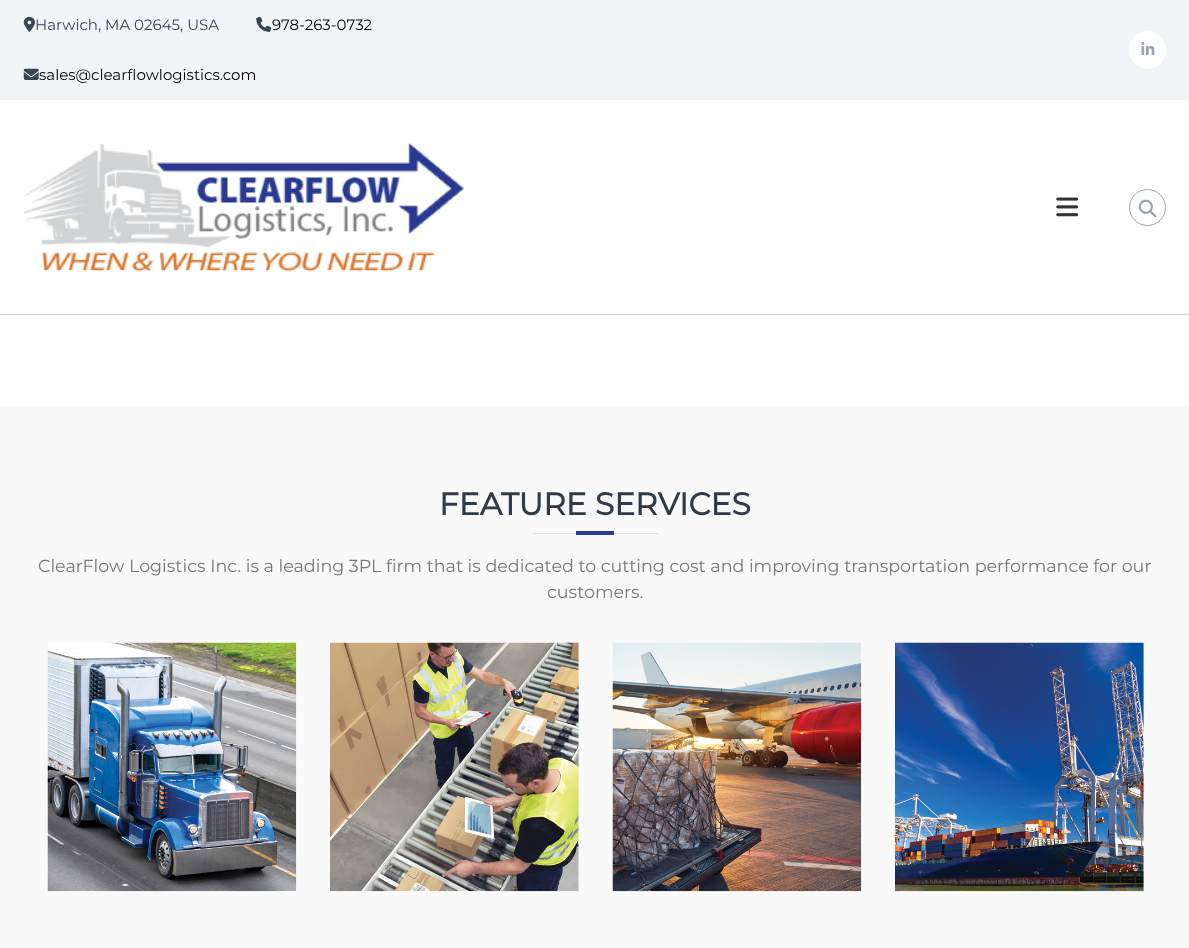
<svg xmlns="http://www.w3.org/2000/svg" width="1189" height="948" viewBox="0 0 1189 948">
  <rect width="100%" height="100%" fill="#fff"/>
  <path d="M0 0h1189v100H0z" fill="#f1f5f8"/>
  <image x="23" y="16" width="12" height="16" href="img/1.png"/>
  <image x="256" y="16" width="16" height="16" href="img/2.png"/>
  <image x="23" y="68" width="16" height="12" href="img/3.png"/>
  <rect x="1129" y="31" width="37" height="38" rx="18.5" fill="#fff"/>
  <image x="1141" y="41" width="14" height="14" href="img/4.png"/>
  <path d="M0 101h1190v214H0z" fill="#00000033" filter="blur(0.5px)"/>
  <path d="M0 100h1189v214H0z" fill="#fff"/>
  <image x="23" y="143" width="441" height="129" href="img/5.png"/>
  <image x="1056" y="197" width="23" height="20" href="img/6.png"/>
  <circle cx="1147.5" cy="207.5" r="18" fill="none" stroke="#9ca6b2"/>
  <image x="1138" y="199" width="19" height="19" href="img/7.png"/>
  <path d="M0 406h1189v542H0z" fill="#f9f9f9"/>
  <path d="M533 533h125v1H533z" fill="#e1e1e1"/>
  <path d="M576 531h38v4H576z" fill="#2b3990"/>
  <image x="47" y="642" width="250" height="250" href="img/8.png"/>
  <image x="330" y="642" width="249" height="250" href="img/9.png"/>
  <image x="612" y="642" width="250" height="250" href="img/10.png"/>
  <image x="895" y="642" width="249" height="250" href="img/11.png"/>
  <text x="35" y="30" font-family="Montserrat" font-size="15" fill="#384554">Harwich, MA 02645, USA</text>
  <g font-family="Montserrat" font-size="15" fill="#000">
    <text x="272" y="30">978-263-0732</text>
    <text x="39" y="80">sales@clearflowlogistics.com</text>
  </g>
  <text x="439" y="515" font-family="Montserrat" font-size="31.25" font-weight="bold" fill="#313b48">FEATURE SERVICES</text>
  <g font-family="Montserrat" font-size="17.5" fill="#777">
    <text x="38" y="572">ClearFlow Logistics Inc. is a leading 3PL firm that is dedicated to cutting cost and improving transportation performance for our</text>
    <text x="547" y="598">customers.</text>
  </g>
</svg>
